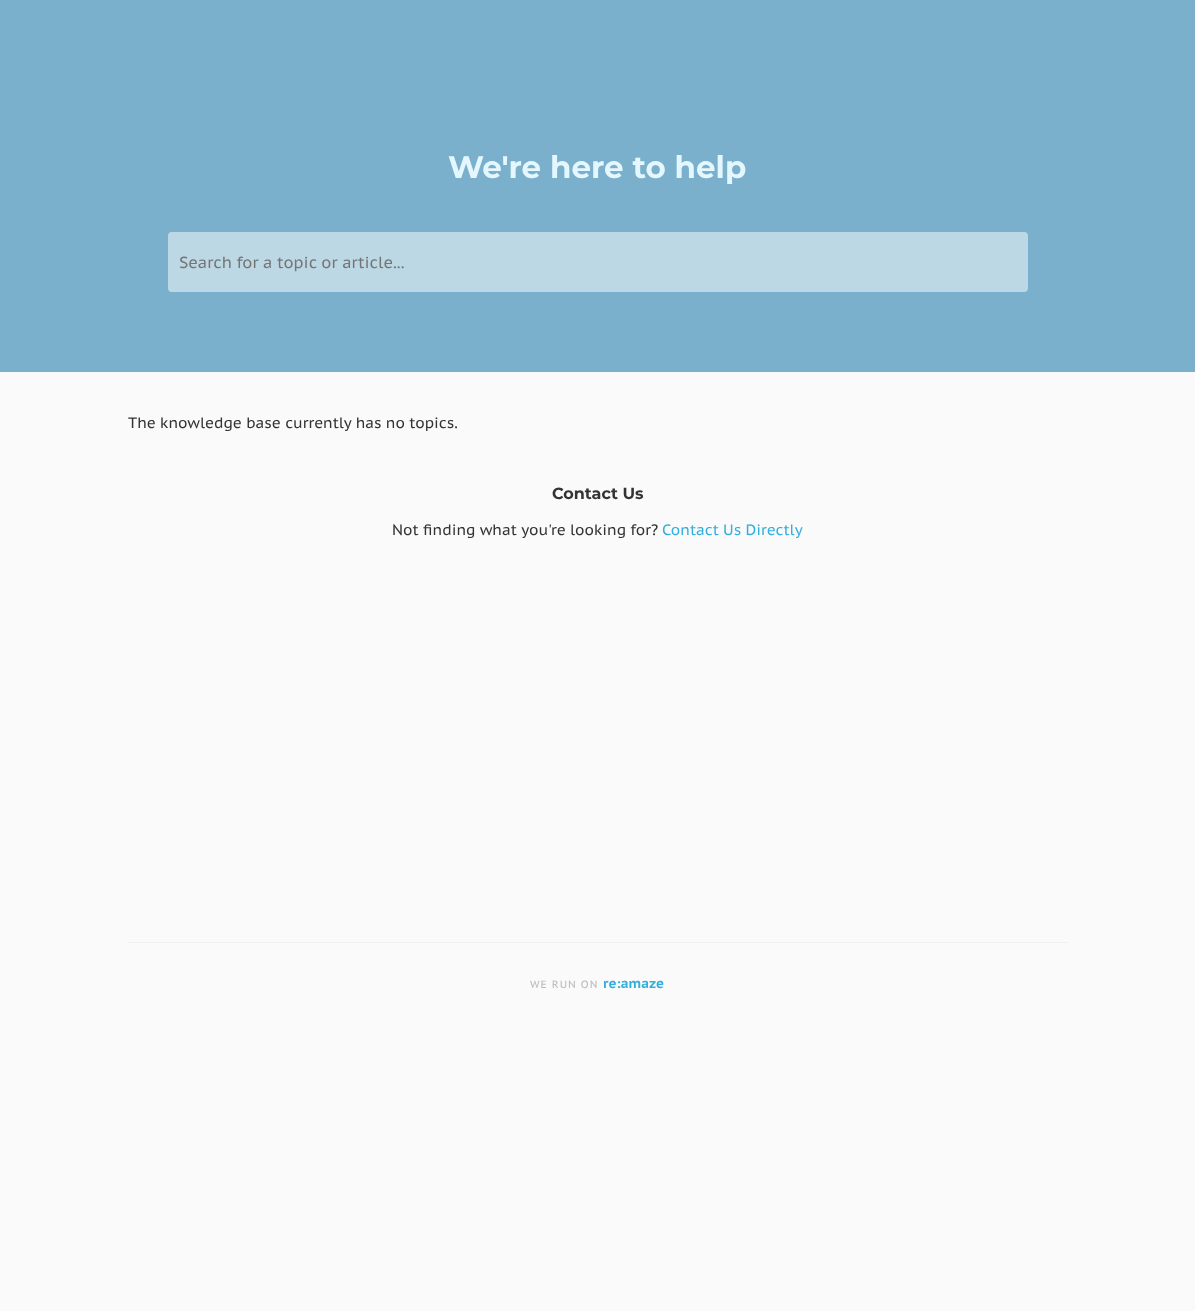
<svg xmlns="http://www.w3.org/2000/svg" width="1195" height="1311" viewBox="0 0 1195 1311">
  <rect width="100%" height="100%" fill="#fafafa"/>
  <path d="M0 0h1195v372H0z" fill="#7ab0cb"/>
  <rect x="168" y="232" width="860" height="60" rx="4" fill="#bdd8e5"/>
  <path d="M128 942h940v1H128z" fill="#f0f0f0"/>
  <text x="448" y="178" font-family="Montserrat" font-size="31" font-weight="bold" fill="#e4f7ff">We're here to help</text>
  <text x="179" y="268" font-family="PT Sans Caption" font-size="16" fill="#757575">Search for a topic or article...</text>
  <text x="128" y="428" font-family="PT Sans Caption" font-size="15" fill="#333">The knowledge base currently has no topics.</text>
  <text x="552" y="499" font-family="Montserrat" font-size="16" font-weight="bold" fill="#333">Contact Us</text>
  <text x="392" y="535" font-family="PT Sans Caption" font-size="15" fill="#333">Not finding what you're looking for?</text>
  <text x="662" y="535" font-family="PT Sans Caption" font-size="15" fill="#33afdd">Contact Us Directly</text>
  <text x="530" y="988" font-family="PT Sans Caption" font-size="10.5" letter-spacing="1" fill="#bbb">WE RUN ON</text>
  <text x="603" y="988" font-family="PT Sans Caption" font-size="13.5" font-weight="bold" fill="#33afdd">re:amaze</text>
</svg>
